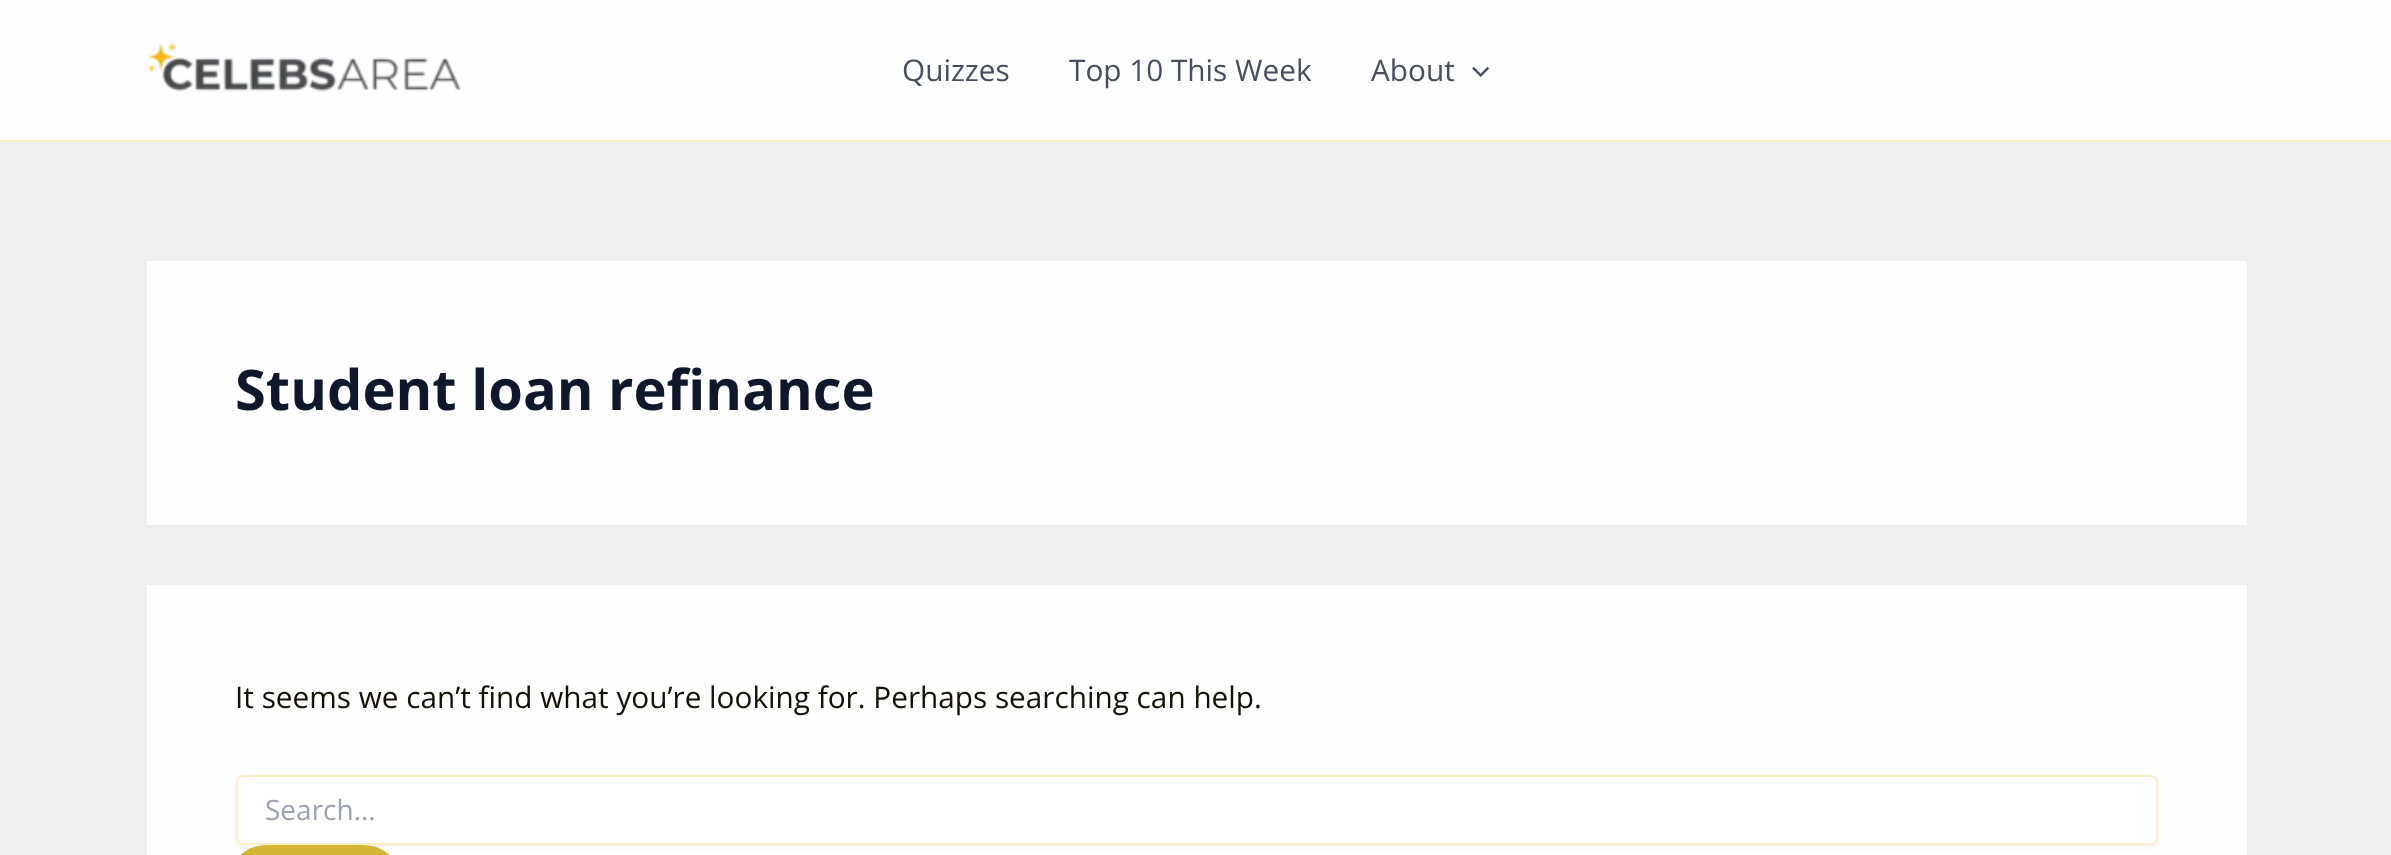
<svg xmlns="http://www.w3.org/2000/svg" width="2391" height="855" viewBox="0 0 2391 855">
  <rect width="100%" height="100%" fill="#efefef"/>
  <path d="M0 0h2391v140H0z" fill="#fefefe"/>
  <path d="M0 140h2391v2H0z" fill="#f9f0c8"/>
  <image x="147" y="42" width="314" height="50" href="img/1.png"/>
  <image x="1472" y="66" width="18" height="11" href="img/2.png"/>
  <path d="M147 261h2100v264H147z" fill="#fefefe"/>
  <path d="M147 585h2100v270H147z" fill="#fefefe"/>
  <rect x="236" y="777" width="1922" height="70" rx="7" fill="#0000000d" filter="blur(2px)"/>
  <rect x="237" y="776" width="1920" height="68" rx="6" fill="#fff" stroke="#f9f0c8" stroke-width="2"/>
  <rect x="236" y="845" width="158" height="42" rx="31.5" fill="#d5b536"/>
  <g font-family="Open Sans" font-size="29.75" fill="#454f5e">
    <text x="902" y="81">Quizzes</text>
    <text x="1069" y="81">Top 10 This Week</text>
    <text x="1371" y="81">About</text>
  </g>
  <text x="235" y="410" font-family="Open Sans" font-size="56" font-weight="bold" fill="#0f172a">Student loan refinance</text>
  <text x="235" y="708" font-family="Open Sans" font-size="29.75" fill="#141006">It seems we can’t find what you’re looking for. Perhaps searching can help.</text>
  <text x="265" y="820" font-family="Open Sans" font-size="28" fill="#9ca3af">Search...</text>
</svg>
